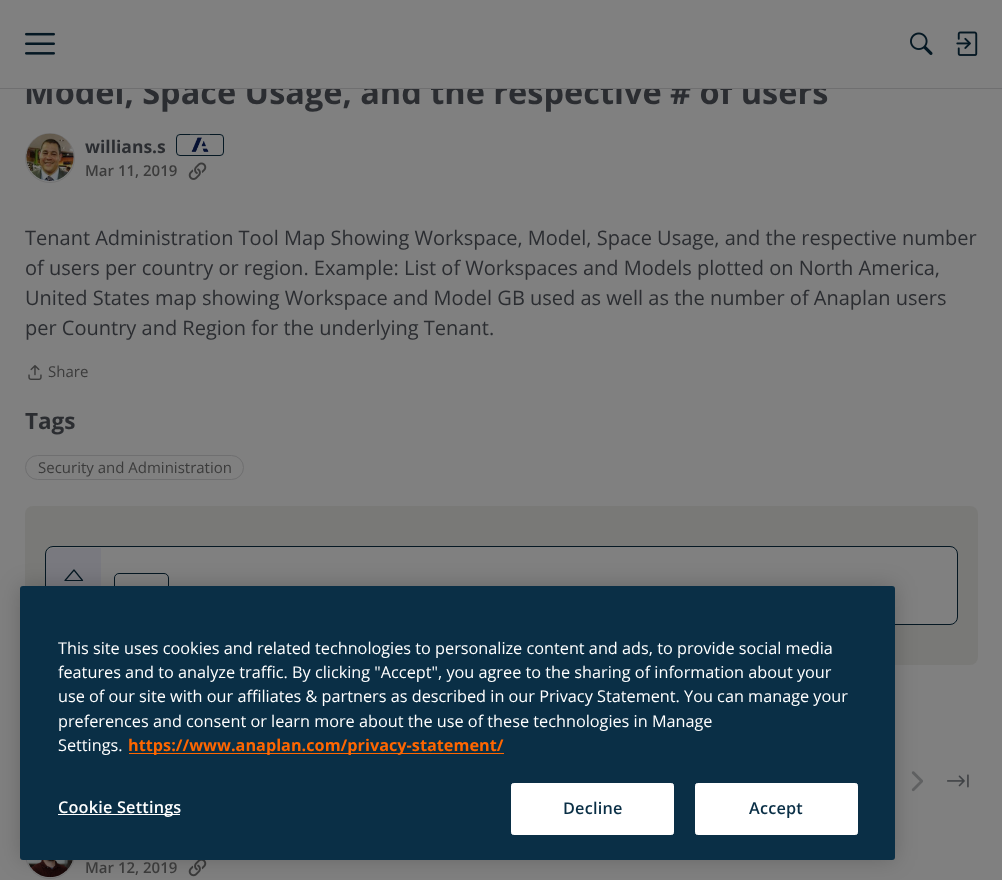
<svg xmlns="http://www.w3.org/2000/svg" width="1002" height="880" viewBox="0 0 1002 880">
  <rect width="100%" height="100%" fill="#808080"/>
  <image x="25" y="32" width="30" height="23" href="img/1.png"/>
  <image x="910" y="32" width="23" height="23" href="img/2.png"/>
  <image x="956" y="31" width="22" height="25" href="img/3.png"/>
  <circle cx="50" cy="158" r="24.5" fill="none" stroke="#737374"/>
  <image x="26" y="133" width="48" height="48" href="img/4.png"/>
  <rect x="176.5" y="134.5" width="47" height="21" rx="3.5" fill="none" stroke="#051823"/>
  <image x="190" y="134" width="20" height="18" href="img/5.png"/>
  <image x="188" y="162" width="19" height="18" href="img/6.png"/>
  <image x="28" y="365" width="14" height="15" href="img/7.png"/>
  <rect x="25.5" y="455.5" width="218" height="24" rx="12" fill="none" stroke="#6f6f70"/>
  <rect x="25" y="506" width="953" height="159" rx="8" fill="#797977"/>
  <rect x="45.5" y="546.5" width="912" height="78" rx="7.5" fill="#808080" stroke="#051823"/>
  <path d="M54 548H101V624H54C49.5 624 46 620.5 46 616V556C46 551.5 49.5 548 54 548Z" fill="#2c2c7514"/>
  <path d="M65 580.5L74 570L82.5 580.5Z" fill="none" stroke="#051823" stroke-width="1.2" stroke-linejoin="round"/>
  <rect x="114.5" y="573.5" width="54" height="24" rx="4.5" fill="none" stroke="#051823"/>
  <image x="911" y="771" width="12" height="21" href="img/8.png"/>
  <image x="947" y="774" width="22" height="14" href="img/9.png"/>
  <circle cx="50" cy="854" r="24.5" fill="none" stroke="#737374"/>
  <image x="27" y="860" width="46" height="18" href="img/10.png"/>
  <image x="188" y="860" width="19" height="17" href="img/11.png"/>
  <rect x="20" y="586" width="875" height="274" rx="3" fill="#00000033" filter="blur(11px)"/>
  <rect x="20" y="586" width="875" height="274" rx="3" fill="#0a2f46"/>
  <path d="M129 753h375v1H129z" fill="#f60"/>
  <path d="M58 814h122v1H58z" fill="#fff"/>
  <rect x="511.5" y="783.5" width="162" height="51" rx="2" fill="#fff" stroke="#fff"/>
  <rect x="695.5" y="783.5" width="162" height="51" rx="2" fill="#fff" stroke="#fff"/>
  <text x="24" y="104" font-family="Open Sans" font-size="32.5" font-weight="bold" fill="#2b2d31">Model, Space Usage, and the respective # of users</text>
  <path d="M26 79h801v9H26z" fill="#808080"/>
  <path d="M0 88h1002v1H0z" fill="#6f6f70"/>
  <text x="85" y="153" font-family="Open Sans" font-size="17.5" font-weight="bold" fill="#2b2d31">willians.s</text>
  <text x="85" y="176" font-family="Open Sans" font-size="15" font-weight="600" fill="#3b3b3b">Mar 11, 2019</text>
  <g font-family="Open Sans" font-size="20" fill="#2b2d31">
    <text x="25" y="245">Tenant Administration Tool Map Showing Workspace, Model, Space Usage, and the respective number</text>
    <text x="25" y="275">of users per country or region. Example: List of Workspaces and Models plotted on North America,</text>
    <text x="25" y="305">United States map showing Workspace and Model GB used as well as the number of Anaplan users</text>
    <text x="25" y="335">per Country and Region for the underlying Tenant.</text>
  </g>
  <text x="48" y="377" font-family="Open Sans" font-size="15" fill="#3b3b3b">Share</text>
  <text x="25" y="429" font-family="Open Sans" font-size="22.5" font-weight="bold" fill="#2b2d31">Tags</text>
  <text x="38" y="473" font-family="Open Sans" font-size="15" fill="#3b3b3b">Security and Administration</text>
  <text x="85" y="873" font-family="Open Sans" font-size="15" font-weight="600" fill="#3b3b3b">Mar 12, 2019</text>
  <g font-family="Open Sans" font-size="16.25" fill="#fff">
    <text x="58" y="654">This site uses cookies and related technologies to personalize content and ads, to provide social media</text>
    <text x="58" y="678">features and to analyze traffic. By clicking "Accept", you agree to the sharing of information about your</text>
    <text x="58" y="702">use of our site with our affiliates &amp; partners as described in our Privacy Statement. You can manage your</text>
    <text x="58" y="727">preferences and consent or learn more about the use of these technologies in Manage</text>
    <text x="58" y="751">Settings.</text>
  </g>
  <text x="128" y="751" font-family="Open Sans" font-size="16.25" font-weight="bold" fill="#f60">https://www.anaplan.com/privacy-statement/</text>
  <text x="58" y="813" font-family="Open Sans" font-size="16.25" font-weight="600" letter-spacing="0.2" fill="#fff">Cookie Settings</text>
  <g font-family="Open Sans" font-size="16.25" font-weight="600" letter-spacing="0.2" fill="#0a2f46">
    <text x="563" y="814">Decline</text>
    <text x="749" y="814">Accept</text>
  </g>
</svg>
